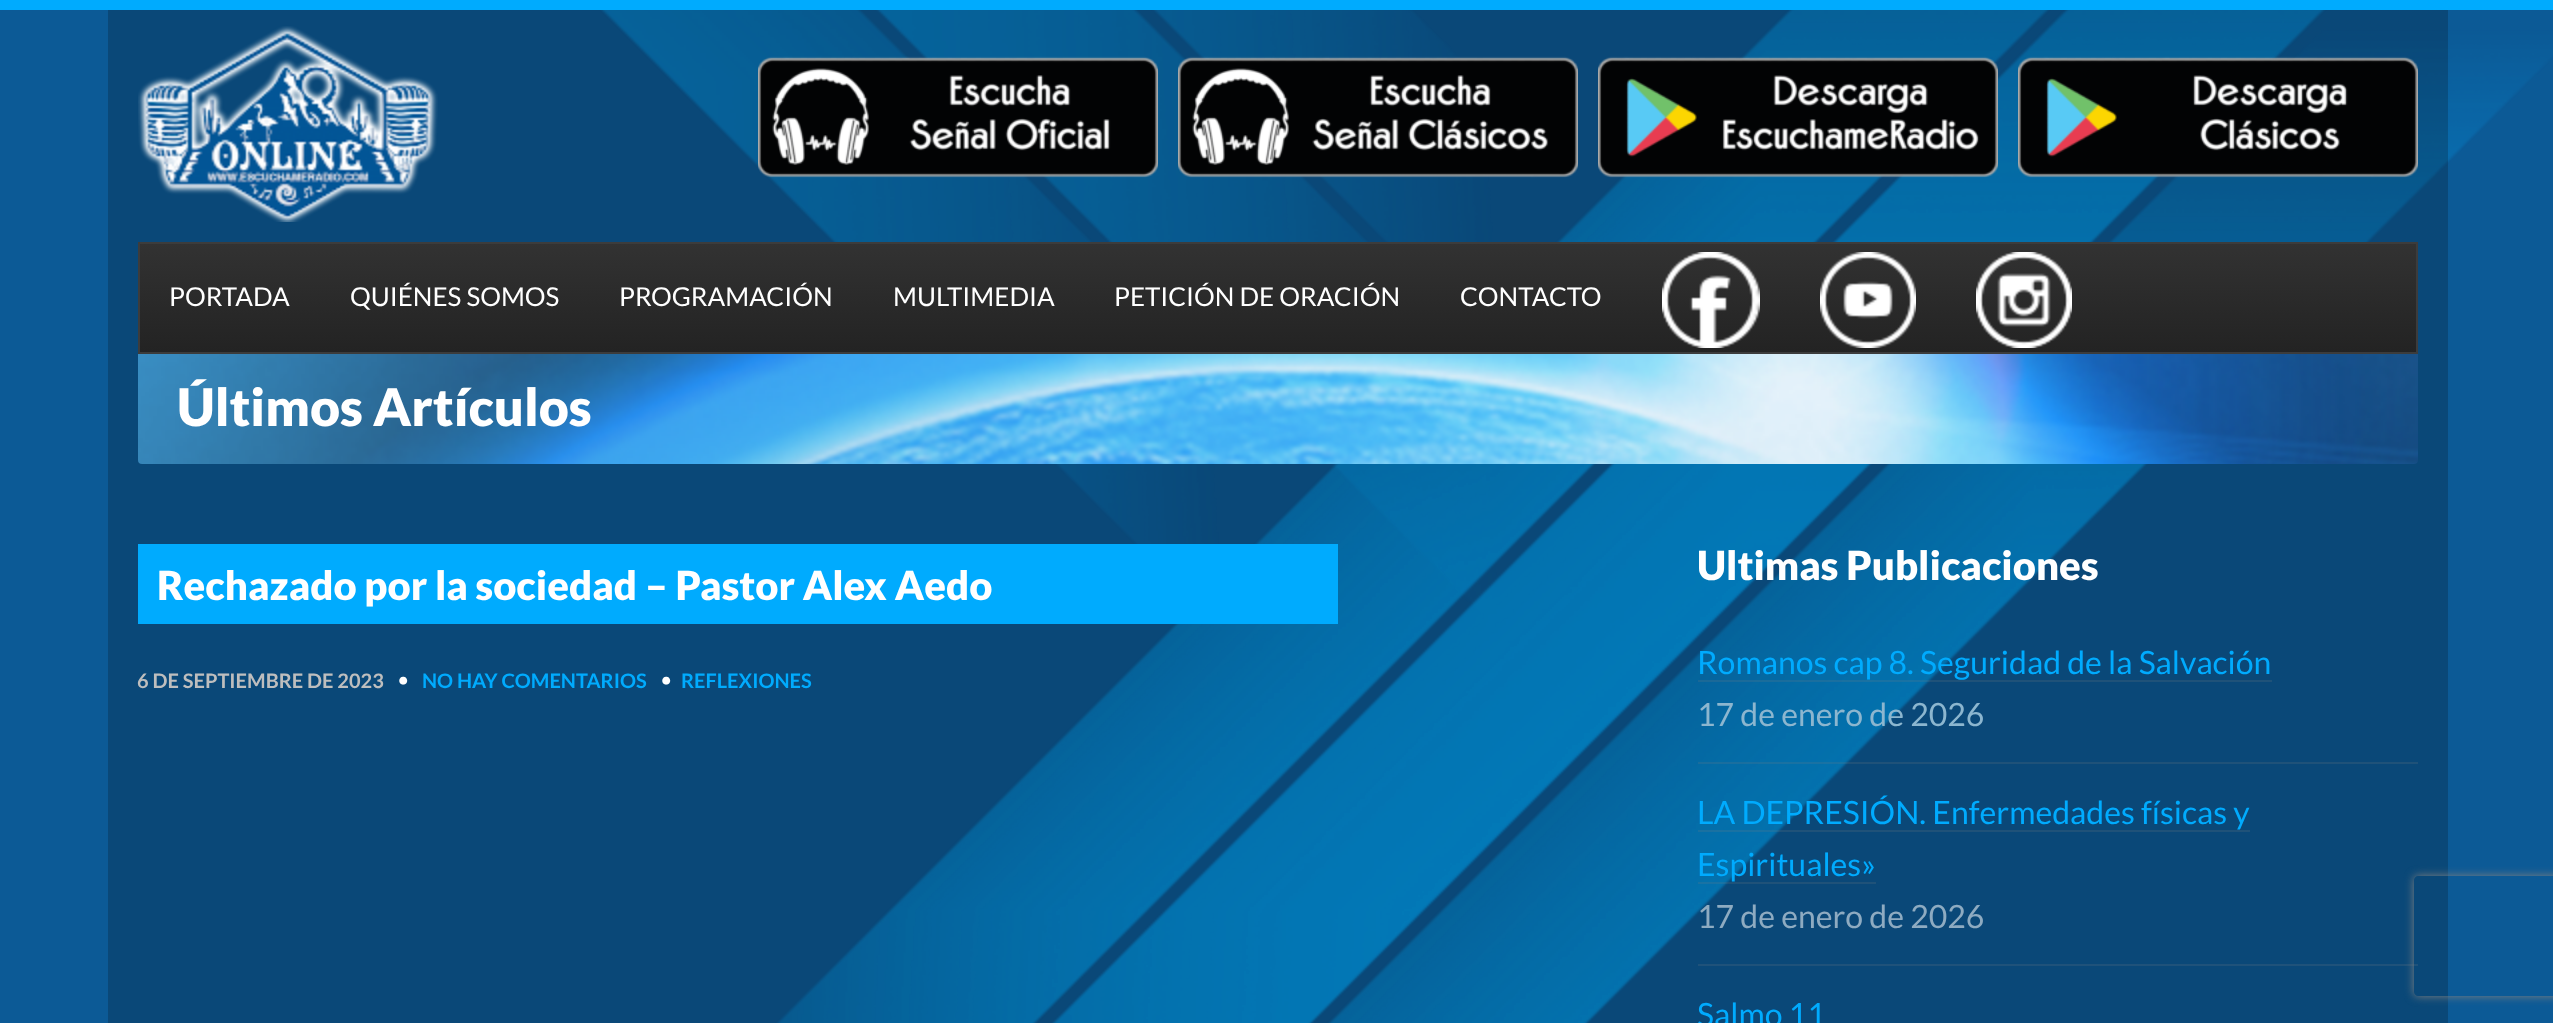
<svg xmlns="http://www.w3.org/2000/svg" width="2553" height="1023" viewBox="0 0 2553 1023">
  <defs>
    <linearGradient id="g1" gradientUnits="userSpaceOnUse" x1="1278" y1="244" x2="1278" y2="352"><stop offset="0" stop-color="#323232"/><stop offset="1" stop-color="#232323"/></linearGradient>
    <clipPath id="clip1"><path d="M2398 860H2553V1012H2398ZM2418 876H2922C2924 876 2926 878 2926 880V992C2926 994 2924 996 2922 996H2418C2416 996 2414 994 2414 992V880C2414 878 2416 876 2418 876Z" clip-rule="evenodd"/></clipPath>
  </defs>
  <rect width="100%" height="100%" fill="#0c5a96"/>
  <path d="M108 10h2340v1013H108z" fill="#0a4878"/>
  <image x="600" y="10" width="1953" height="1013" href="img/1.png"/>
  <path d="M0 0h2553v10H0z" fill="#00abfe"/>
  <image x="138" y="26" width="300" height="196" href="img/2.png"/>
  <image x="758" y="56" width="400" height="122" href="img/3.png"/>
  <image x="1178" y="56" width="400" height="122" href="img/4.png"/>
  <image x="1598" y="56" width="400" height="122" href="img/5.png"/>
  <image x="2018" y="56" width="400" height="122" href="img/6.png"/>
  <path d="M140 244h2276v108H140z" fill="url(#g1)"/>
  <path d="M139 243h2278v110H139z" fill="none" stroke="#3c3c3c" stroke-width="2"/>
  <image x="1662" y="252" width="98" height="96" href="img/7.png"/>
  <image x="1820" y="252" width="96" height="96" href="img/8.png"/>
  <image x="1976" y="252" width="96" height="96" href="img/9.png"/>
  <image x="138" y="354" width="2280" height="110" href="img/10.png"/>
  <path d="M138 544h1200v80H138z" fill="#00abfe"/>
  <path d="M1698 762h720v2H1698z" fill="#8181812e"/>
  <path d="M1698 680h574v2H1698z" fill="#8181812e"/>
  <path d="M1698 964h720v2H1698z" fill="#1f527a"/>
  <path d="M1698 830h552v2H1698z" fill="#8181812e"/>
  <path d="M1698 882h178v2H1698z" fill="#8181812e"/>
  <g clip-path="url(#clip1)">
    <rect x="2414" y="876" width="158" height="120" rx="4" fill="#808080" filter="blur(5px)"/>
  </g>
  <g font-family="Lato" font-size="26" fill="#fff">
    <text x="169" y="306">PORTADA</text>
    <text x="350" y="306">QUIÉNES SOMOS</text>
    <text x="619" y="306">PROGRAMACIÓN</text>
    <text x="893" y="306">MULTIMEDIA</text>
    <text x="1114" y="306">PETICIÓN DE ORACIÓN</text>
    <text x="1460" y="306">CONTACTO</text>
  </g>
  <text x="177" y="426" font-family="Lato" font-size="52" font-weight="900" fill="#fff">Últimos Artículos</text>
  <text x="157" y="600" font-family="Lato" font-size="40" font-weight="900" fill="#fff">Rechazado por la sociedad – Pastor Alex Aedo</text>
  <text x="137" y="688" font-family="Lato" font-size="20" font-weight="bold" fill="#bebebe">6 DE SEPTIEMBRE DE 2023</text>
  <text x="398" y="686" font-family="Lato" font-size="18" font-weight="bold" fill="#fff">•</text>
  <text x="422" y="688" font-family="Lato" font-size="20" font-weight="bold" fill="#00abfe">NO HAY COMENTARIOS</text>
  <text x="661" y="686" font-family="Lato" font-size="18" font-weight="bold" fill="#fff">•</text>
  <text x="681" y="688" font-family="Lato" font-size="20" font-weight="bold" fill="#00abfe">REFLEXIONES</text>
  <text x="1697" y="580" font-family="Lato" font-size="40" font-weight="900" fill="#fff">Ultimas Publicaciones</text>
  <text x="1697" y="674" font-family="Lato" font-size="32" fill="#00abfe">Romanos cap 8. Seguridad de la Salvación</text>
  <text x="1697" y="726" font-family="Lato" font-size="32" fill="#8cb6cf">17 de enero de 2026</text>
  <g font-family="Lato" font-size="32" fill="#00abfe">
    <text x="1697" y="824">LA DEPRESIÓN. Enfermedades físicas y</text>
    <text x="1697" y="876">Espirituales»</text>
  </g>
  <text x="1697" y="928" font-family="Lato" font-size="32" fill="#8eabc1">17 de enero de 2026</text>
  <text x="1697" y="1026" font-family="Lato" font-size="32" fill="#00abfe">Salmo 11</text>
</svg>
